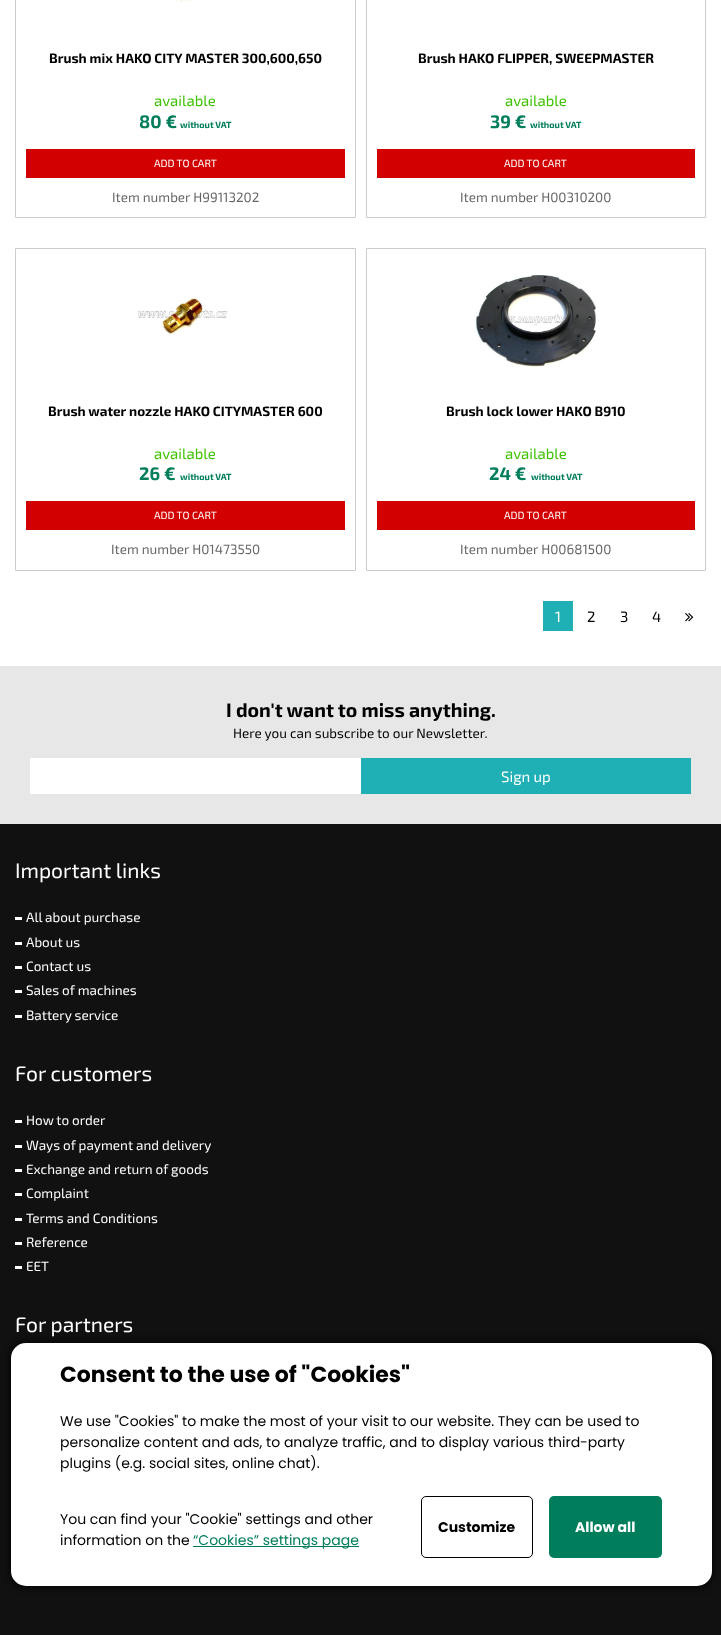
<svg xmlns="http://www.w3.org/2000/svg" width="721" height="1635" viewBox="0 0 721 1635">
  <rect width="100%" height="100%" fill="#fff"/>
  <path d="M15.5 -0.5h340v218H15.5z" fill="none" stroke="#ccc"/>
  <image x="176" y="0" width="19" height="2" href="img/1.png"/>
  <path d="M26 149h319v29H26z" fill="#d20000"/>
  <path d="M366.5 -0.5h339v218H366.5z" fill="none" stroke="#ccc"/>
  <path d="M377 149h318v29H377z" fill="#d20000"/>
  <path d="M15.5 248.5h340v322H15.5z" fill="none" stroke="#ccc"/>
  <image x="138" y="297" width="90" height="38" href="img/2.png"/>
  <path d="M26 501h319v29H26z" fill="#d20000"/>
  <path d="M366.5 248.5h339v322H366.5z" fill="none" stroke="#ccc"/>
  <image x="475" y="275" width="122" height="93" href="img/3.png"/>
  <path d="M377 501h318v29H377z" fill="#d20000"/>
  <path d="M543 601h30v30H543z" fill="#1fb0b5"/>
  <image x="685" y="613" width="9" height="9" href="img/4.png"/>
  <path d="M0 666h721v158H0z" fill="#e7e7e7"/>
  <path d="M30 758h331v36H30z" fill="#fff"/>
  <path d="M361 758h330v36H361z" fill="#1fb0b5"/>
  <path d="M0 824h721v811H0z" fill="#111"/>
  <path d="M15 917h7v3H15z" fill="#fff"/>
  <path d="M15 942h7v3H15z" fill="#fff"/>
  <path d="M15 966h7v3H15z" fill="#fff"/>
  <path d="M15 990h7v3H15z" fill="#fff"/>
  <path d="M15 1015h7v3H15z" fill="#fff"/>
  <path d="M15 1120h7v3H15z" fill="#fff"/>
  <path d="M15 1145h7v3H15z" fill="#fff"/>
  <path d="M15 1169h7v3H15z" fill="#fff"/>
  <path d="M15 1193h7v3H15z" fill="#fff"/>
  <path d="M15 1218h7v3H15z" fill="#fff"/>
  <path d="M15 1242h7v3H15z" fill="#fff"/>
  <path d="M15 1266h7v3H15z" fill="#fff"/>
  <rect x="11" y="1343" width="701" height="243" rx="15" fill="#000" filter="blur(5px)"/>
  <rect x="11" y="1343" width="701" height="243" rx="15" fill="#fff"/>
  <path d="M193 1546h166v1H193z" fill="#007d5b"/>
  <rect x="421.5" y="1496.5" width="111" height="61" rx="4.5" fill="none" stroke="#000"/>
  <rect x="549" y="1496" width="113" height="62" rx="5" fill="#007d5b"/>
  <text x="49" y="63" font-family="'Exo 2'" font-size="13.5" font-weight="bold" fill="#000">Brush mix HAKO CITY MASTER 300,600,650</text>
  <text x="154" y="106" font-family="'Exo 2'" font-size="15" fill="#40c304">available</text>
  <text x="139" y="128" font-family="'Exo 2'" font-size="18" font-weight="bold" fill="#007d5b">80 €</text>
  <text x="180" y="128" font-family="'Exo 2'" font-size="9" font-weight="bold" fill="#007d5b">without VAT</text>
  <text x="154" y="167" font-family="'Exo 2'" font-size="10.5" fill="#fff">ADD TO CART</text>
  <text x="112" y="202" font-family="'Exo 2'" font-size="13.5" fill="#666">Item number H99113202</text>
  <text x="418" y="63" font-family="'Exo 2'" font-size="13.5" font-weight="bold" fill="#000">Brush HAKO FLIPPER, SWEEPMASTER</text>
  <text x="505" y="106" font-family="'Exo 2'" font-size="15" fill="#40c304">available</text>
  <text x="490" y="128" font-family="'Exo 2'" font-size="18" font-weight="bold" fill="#007d5b">39 €</text>
  <text x="530" y="128" font-family="'Exo 2'" font-size="9" font-weight="bold" fill="#007d5b">without VAT</text>
  <text x="504" y="167" font-family="'Exo 2'" font-size="10.5" fill="#fff">ADD TO CART</text>
  <text x="460" y="202" font-family="'Exo 2'" font-size="13.5" fill="#666">Item number H00310200</text>
  <text x="48" y="416" font-family="'Exo 2'" font-size="13.5" font-weight="bold" fill="#000">Brush water nozzle HAKO CITYMASTER 600</text>
  <text x="154" y="459" font-family="'Exo 2'" font-size="15" fill="#40c304">available</text>
  <text x="139" y="480" font-family="'Exo 2'" font-size="18" font-weight="bold" fill="#007d5b">26 €</text>
  <text x="180" y="480" font-family="'Exo 2'" font-size="9" font-weight="bold" fill="#007d5b">without VAT</text>
  <text x="154" y="519" font-family="'Exo 2'" font-size="10.5" fill="#fff">ADD TO CART</text>
  <text x="111" y="554" font-family="'Exo 2'" font-size="13.5" fill="#666">Item number H01473550</text>
  <text x="446" y="416" font-family="'Exo 2'" font-size="13.5" font-weight="bold" fill="#000">Brush lock lower HAKO B910</text>
  <text x="505" y="459" font-family="'Exo 2'" font-size="15" fill="#40c304">available</text>
  <text x="489" y="480" font-family="'Exo 2'" font-size="18" font-weight="bold" fill="#007d5b">24 €</text>
  <text x="531" y="480" font-family="'Exo 2'" font-size="9" font-weight="bold" fill="#007d5b">without VAT</text>
  <text x="504" y="519" font-family="'Exo 2'" font-size="10.5" fill="#fff">ADD TO CART</text>
  <text x="460" y="554" font-family="'Exo 2'" font-size="13.5" fill="#666">Item number H00681500</text>
  <text x="555" y="622" font-family="'Exo 2'" font-size="15" fill="#fff">1</text>
  <g font-family="'Exo 2'" font-size="15" fill="#000">
    <text x="587" y="622">2</text>
    <text x="620" y="622">3</text>
    <text x="652" y="622">4</text>
  </g>
  <text x="226" y="717" font-family="'Exo 2'" font-size="19.5" font-weight="bold" fill="#000">I don't want to miss anything.</text>
  <text x="233" y="738" font-family="'Exo 2'" font-size="13.5" fill="#000">Here you can subscribe to our Newsletter.</text>
  <text x="501" y="782" font-family="'Exo 2'" font-size="15" fill="#fff">Sign up</text>
  <text x="15" y="878" font-family="'Exo 2'" font-size="21" fill="#fff">Important links</text>
  <g font-family="'Exo 2'" font-size="13.5" fill="#fff">
    <text x="26" y="922">All about purchase</text>
    <text x="26" y="947">About us</text>
    <text x="26" y="971">Contact us</text>
    <text x="26" y="995">Sales of machines</text>
    <text x="26" y="1020">Battery service</text>
  </g>
  <text x="15" y="1081" font-family="'Exo 2'" font-size="21" fill="#fff">For customers</text>
  <g font-family="'Exo 2'" font-size="13.5" fill="#fff">
    <text x="26" y="1125">How to order</text>
    <text x="26" y="1150">Ways of payment and delivery</text>
    <text x="26" y="1174">Exchange and return of goods</text>
    <text x="26" y="1198">Complaint</text>
    <text x="26" y="1223">Terms and Conditions</text>
    <text x="26" y="1247">Reference</text>
    <text x="26" y="1271">EET</text>
  </g>
  <text x="15" y="1332" font-family="'Exo 2'" font-size="21" fill="#fff">For partners</text>
  <text x="60" y="1382" font-family="Poppins" font-size="22" font-weight="bold" fill="#000">Consent to the use of "Cookies"</text>
  <g font-family="Poppins" font-size="14" fill="#000">
    <text x="60" y="1426">We use "Cookies" to make the most of your visit to our website. They can be used to</text>
    <text x="60" y="1447">personalize content and ads, to analyze traffic, and to display various third-party</text>
    <text x="60" y="1468">plugins (e.g. social sites, online chat).</text>
    <text x="60" y="1524">You can find your "Cookie" settings and other</text>
    <text x="60" y="1545">information on the</text>
  </g>
  <text x="193" y="1545" font-family="Poppins" font-size="14" fill="#007d5b">“Cookies” settings page</text>
  <text x="438" y="1532" font-family="Poppins" font-size="14" font-weight="bold" fill="#000">Customize</text>
  <text x="575" y="1532" font-family="Poppins" font-size="14" font-weight="bold" fill="#fff">Allow all</text>
</svg>
